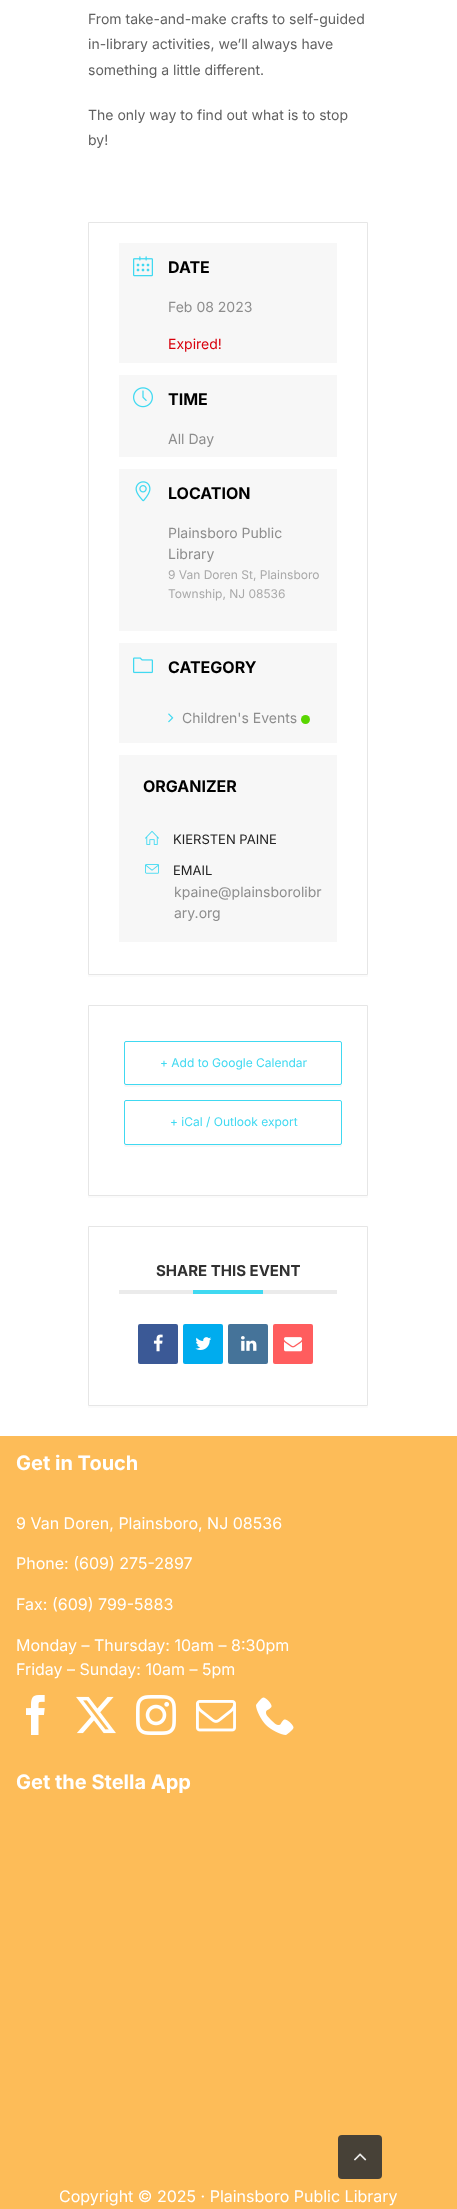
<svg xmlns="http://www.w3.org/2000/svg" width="457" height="2209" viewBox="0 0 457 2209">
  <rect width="100%" height="100%" fill="#fff"/>
  <path d="M88 975h280v2H88z" fill="#fbfbfb"/>
  <path d="M88.5 222.5h279v752H88.5z" fill="none" stroke="#e6e6e6"/>
  <path d="M119 243h218v120H119z" fill="#f7f7f7"/>
  <image x="133" y="256" width="20" height="21" href="img/1.png"/>
  <path d="M119 375h218v82H119z" fill="#f7f7f7"/>
  <image x="133" y="387" width="20" height="21" href="img/2.png"/>
  <path d="M119 469h218v162H119z" fill="#f7f7f7"/>
  <image x="135" y="481" width="16" height="21" href="img/3.png"/>
  <path d="M119 643h218v100H119z" fill="#f7f7f7"/>
  <image x="133" y="657" width="20" height="17" href="img/4.png"/>
  <image x="168" y="713" width="6" height="10" href="img/5.png"/>
  <circle cx="305.5" cy="719.5" r="4.5" fill="#59d600"/>
  <path d="M119 755h218v187H119z" fill="#f7f7f7"/>
  <image x="145" y="830" width="14" height="15" href="img/6.png"/>
  <image x="145" y="864" width="14" height="10" href="img/7.png"/>
  <path d="M88 1196h280v2H88z" fill="#fbfbfb"/>
  <path d="M88.5 1005.5h279v190H88.5z" fill="none" stroke="#e6e6e6"/>
  <path d="M124 1083V1085C124 1086 125 1087 126 1087H340C341 1087 342 1086 342 1085V1083C342 1084 341 1085 340 1085H126C125 1085 124 1084 124 1083Z" fill="#f7f7f7"/>
  <rect x="124.5" y="1041.5" width="217" height="43" rx="1.5" fill="none" stroke="#40d9f1"/>
  <path d="M124 1143V1145C124 1146 125 1147 126 1147H340C341 1147 342 1146 342 1145V1143C342 1144 341 1145 340 1145H126C125 1145 124 1144 124 1143Z" fill="#f7f7f7"/>
  <rect x="124.5" y="1100.5" width="217" height="44" rx="1.5" fill="none" stroke="#40d9f1"/>
  <path d="M88 1406h280v2H88z" fill="#fbfbfb"/>
  <path d="M88.5 1226.5h279v179H88.5z" fill="none" stroke="#e6e6e6"/>
  <path d="M119 1290h218v4H119z" fill="#ebebeb"/>
  <path d="M193 1290h70v4H193z" fill="#40d9f1"/>
  <rect x="138" y="1324" width="40" height="40" rx="2" fill="#3b5996"/>
  <image x="153" y="1334" width="10" height="18" href="img/8.png"/>
  <rect x="183" y="1324" width="40" height="40" rx="2" fill="#00acee"/>
  <image x="195" y="1337" width="17" height="13" href="img/9.png"/>
  <rect x="228" y="1324" width="40" height="40" rx="2" fill="#457399"/>
  <image x="241" y="1336" width="16" height="15" href="img/10.png"/>
  <rect x="273" y="1324" width="40" height="40" rx="2" fill="#ff5d5e"/>
  <image x="284" y="1337" width="18" height="15" href="img/11.png"/>
  <path d="M0 1436h457v773H0z" fill="#fdbc58"/>
  <image x="26" y="1695" width="19" height="40" href="img/12.png"/>
  <image x="76" y="1696" width="40" height="38" href="img/13.png"/>
  <image x="136" y="1695" width="40" height="40" href="img/14.png"/>
  <image x="196" y="1700" width="40" height="32" href="img/15.png"/>
  <image x="256" y="1697" width="38" height="38" href="img/16.png"/>
  <rect x="338" y="2135" width="44" height="44" rx="4" fill="#474137"/>
  <image x="354" y="2153" width="13" height="8" href="img/17.png"/>
  <g font-family="Inter" font-size="14" fill="#616161">
    <text x="88" y="24">From take-and-make crafts to self-guided</text>
    <text x="88" y="49">in-library activities, we’ll always have</text>
    <text x="88" y="75">something a little different.</text>
    <text x="88" y="120">The only way to find out what is to stop</text>
    <text x="88" y="145">by!</text>
  </g>
  <text x="168" y="273" font-family="Inter" font-size="16" font-weight="bold" fill="#000">DATE</text>
  <text x="168" y="312" font-family="Inter" font-size="14" fill="#8d8d8d">Feb 08 2023</text>
  <text x="168" y="349" font-family="Inter" font-size="14" fill="#d8000c">Expired!</text>
  <text x="168" y="405" font-family="Inter" font-size="16" font-weight="bold" fill="#000">TIME</text>
  <text x="168" y="444" font-family="Inter" font-size="14" fill="#8d8d8d">All Day</text>
  <text x="168" y="499" font-family="Inter" font-size="16" font-weight="bold" fill="#000">LOCATION</text>
  <g font-family="Inter" font-size="14" fill="#8d8d8d">
    <text x="168" y="538">Plainsboro Public</text>
    <text x="168" y="559">Library</text>
  </g>
  <g font-family="Inter" font-size="12" fill="#a9a9a9">
    <text x="168" y="579">9 Van Doren St, Plainsboro</text>
    <text x="168" y="598">Township, NJ 08536</text>
  </g>
  <text x="168" y="673" font-family="Inter" font-size="16" font-weight="bold" fill="#000">CATEGORY</text>
  <text x="182" y="723" font-family="Inter" font-size="14" fill="#8d8d8d">Children's Events</text>
  <text x="143" y="792" font-family="Inter" font-size="16" font-weight="bold" fill="#000">ORGANIZER</text>
  <g font-family="Inter" font-size="13" fill="#222">
    <text x="173" y="844">KIERSTEN PAINE</text>
    <text x="173" y="875">EMAIL</text>
  </g>
  <g font-family="Inter" font-size="14" fill="#8d8d8d">
    <text x="174" y="897">kpaine@plainsborolibr</text>
    <text x="174" y="918">ary.org</text>
  </g>
  <g font-family="Inter" font-size="12" fill="#40d9f1">
    <text x="160" y="1067">+ Add to Google Calendar</text>
    <text x="170" y="1126">+ iCal / Outlook export</text>
  </g>
  <text x="156" y="1276" font-family="Inter" font-size="15" font-weight="bold" fill="#313131">SHARE THIS EVENT</text>
  <text x="16" y="1470" font-family="Inter" font-size="20" font-weight="bold" fill="#fff">Get in Touch</text>
  <g font-family="Inter" font-size="16" fill="#fff">
    <text x="16" y="1529">9 Van Doren, Plainsboro, NJ 08536</text>
    <text x="16" y="1569">Phone: (609) 275-2897</text>
    <text x="16" y="1610">Fax: (609) 799-5883</text>
    <text x="16" y="1651">Monday – Thursday: 10am – 8:30pm</text>
    <text x="16" y="1675">Friday – Sunday: 10am – 5pm</text>
  </g>
  <text x="16" y="1789" font-family="Inter" font-size="20" font-weight="bold" fill="#fff">Get the Stella App</text>
  <text x="59" y="2202" font-family="Inter" font-size="16" fill="#fff">Copyright © 2025 · Plainsboro Public Library</text>
</svg>
